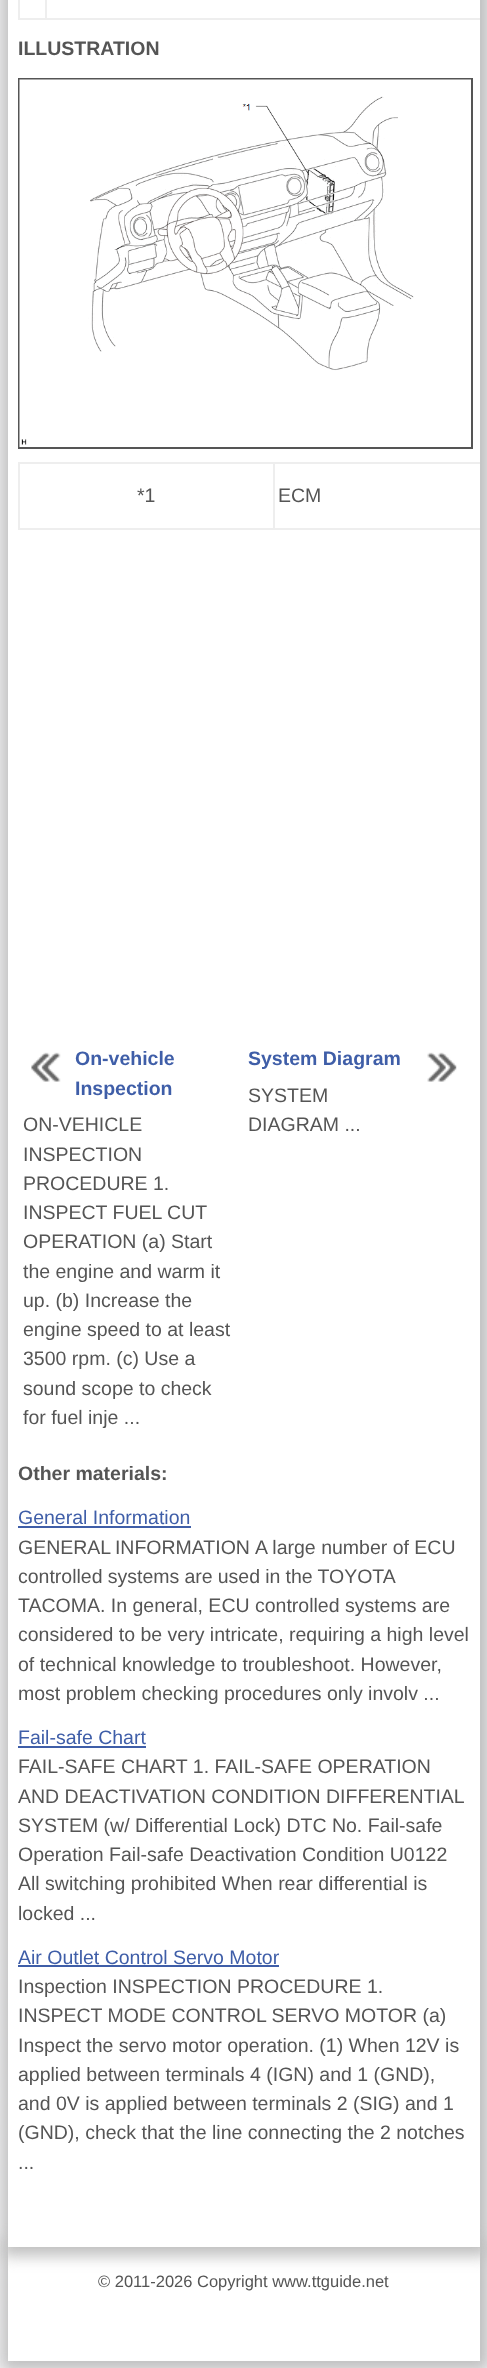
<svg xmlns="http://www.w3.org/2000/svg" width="487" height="2368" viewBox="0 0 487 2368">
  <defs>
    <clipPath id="clip1"><path d="M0 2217H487V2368H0ZM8 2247H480V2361H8Z" clip-rule="evenodd"/></clipPath>
  </defs>
  <rect width="100%" height="100%" fill="#f3f3f5"/>
  <path d="M8 2247h472v114H8z" fill="#fff"/>
  <path d="M2 -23h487v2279H2z" fill="#bfbfbf" filter="blur(7.5px)"/>
  <g clip-path="url(#clip1)">
    <path d="M2 2241h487v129H2z" fill="#bfbfbf" filter="blur(7.5px)"/>
  </g>
  <path d="M8 0h472v2247H8z" fill="#fff"/>
  <path d="M45 18h435v2H45z" fill="#eee"/>
  <path d="M45 0h2v20H45z" fill="#eee"/>
  <path d="M18 18h29v2H18z" fill="#eee"/>
  <path d="M18 0h2v20H18z" fill="#eee"/>
  <path d="M19 79h453v369H19z" fill="none" stroke="#555" stroke-width="2"/>
  <image x="19" y="79" width="452" height="368" href="img/1.png"/>
  <path d="M273 462h207v2H273z" fill="#eee"/>
  <path d="M273 528h207v2H273z" fill="#eee"/>
  <path d="M273 462h2v68H273z" fill="#eee"/>
  <path d="M18 462h257v2H18z" fill="#eee"/>
  <path d="M18 528h257v2H18z" fill="#eee"/>
  <path d="M18 462h2v68H18z" fill="#eee"/>
  <image x="31" y="1052" width="30" height="30" href="img/2.png"/>
  <image x="427" y="1052" width="30" height="30" href="img/3.png"/>
  <path d="M18 1526h173v2H18z" fill="#3f5ea8"/>
  <path d="M18 1746h128v2H18z" fill="#3f5ea8"/>
  <path d="M18 1965h261v2H18z" fill="#3f5ea8"/>
  <text x="18" y="55" font-family="Liberation Sans" font-size="19.5" font-weight="bold" fill="#555">ILLUSTRATION</text>
  <g font-family="Liberation Sans" font-size="19.5" fill="#555">
    <text x="137" y="502">*1</text>
    <text x="278" y="502">ECM</text>
  </g>
  <g font-family="Liberation Sans" font-size="19.5" font-weight="bold" fill="#3f5ea8">
    <text x="75" y="1065">On-vehicle</text>
    <text x="75" y="1095">Inspection</text>
  </g>
  <g font-family="Liberation Sans" font-size="19.5" fill="#555">
    <text x="23" y="1131">ON-VEHICLE</text>
    <text x="23" y="1161">INSPECTION</text>
    <text x="23" y="1190">PROCEDURE 1.</text>
    <text x="23" y="1219">INSPECT FUEL CUT</text>
    <text x="23" y="1248">OPERATION (a) Start</text>
    <text x="23" y="1278">the engine and warm it</text>
    <text x="23" y="1307">up. (b) Increase the</text>
    <text x="23" y="1336">engine speed to at least</text>
    <text x="23" y="1365">3500 rpm. (c) Use a</text>
    <text x="23" y="1395">sound scope to check</text>
    <text x="23" y="1424">for fuel inje ...</text>
  </g>
  <text x="248" y="1065" font-family="Liberation Sans" font-size="19.5" font-weight="bold" fill="#3f5ea8">System Diagram</text>
  <g font-family="Liberation Sans" font-size="19.5" fill="#555">
    <text x="248" y="1102">SYSTEM</text>
    <text x="248" y="1131">DIAGRAM ...</text>
  </g>
  <text x="18" y="1480" font-family="Liberation Sans" font-size="19.5" font-weight="bold" fill="#555">Other materials:</text>
  <text x="18" y="1524" font-family="Liberation Sans" font-size="19.5" fill="#3f5ea8">General Information</text>
  <g font-family="Liberation Sans" font-size="19.5" fill="#555">
    <text x="18" y="1554" word-spacing="-1">GENERAL INFORMATION</text>
    <text x="255" y="1554">A large number of ECU</text>
    <text x="18" y="1583" word-spacing="-0.25">controlled systems are used in the TOYOTA</text>
    <text x="18" y="1612">TACOMA. In general, ECU controlled systems are</text>
    <text x="18" y="1641">considered to be very intricate, requiring a high level</text>
    <text x="18" y="1671">of technical knowledge to troubleshoot. However,</text>
    <text x="18" y="1700">most problem checking procedures only involv ...</text>
  </g>
  <text x="18" y="1744" font-family="Liberation Sans" font-size="19.5" fill="#3f5ea8">Fail-safe Chart</text>
  <g font-family="Liberation Sans" font-size="19.5" fill="#555">
    <text x="18" y="1773">FAIL-SAFE CHART 1. FAIL-SAFE OPERATION</text>
    <text x="18" y="1803">AND DEACTIVATION CONDITION DIFFERENTIAL</text>
    <text x="18" y="1832">SYSTEM (w/ Differential Lock) DTC No. Fail-safe</text>
    <text x="18" y="1861">Operation Fail-safe Deactivation Condition U0122</text>
    <text x="18" y="1890">All switching prohibited When rear differential is</text>
    <text x="18" y="1920">locked ...</text>
  </g>
  <text x="18" y="1964" font-family="Liberation Sans" font-size="19.5" fill="#3f5ea8">Air Outlet Control Servo Motor</text>
  <g font-family="Liberation Sans" font-size="19.5" fill="#555">
    <text x="18" y="1993">Inspection INSPECTION PROCEDURE 1.</text>
    <text x="18" y="2022">INSPECT MODE CONTROL SERVO MOTOR (a)</text>
    <text x="18" y="2052">Inspect the servo motor operation. (1) When 12V is</text>
    <text x="18" y="2081">applied between terminals 4 (IGN) and 1 (GND),</text>
    <text x="18" y="2110">and 0V is applied between terminals 2 (SIG) and 1</text>
    <text x="18" y="2139">(GND), check that the line connecting the 2 notches</text>
    <text x="18" y="2169">...</text>
  </g>
  <text x="98" y="2287" font-family="Liberation Sans" font-size="16.5" fill="#555">© 2011-2026 Copyright www.ttguide.net</text>
</svg>
